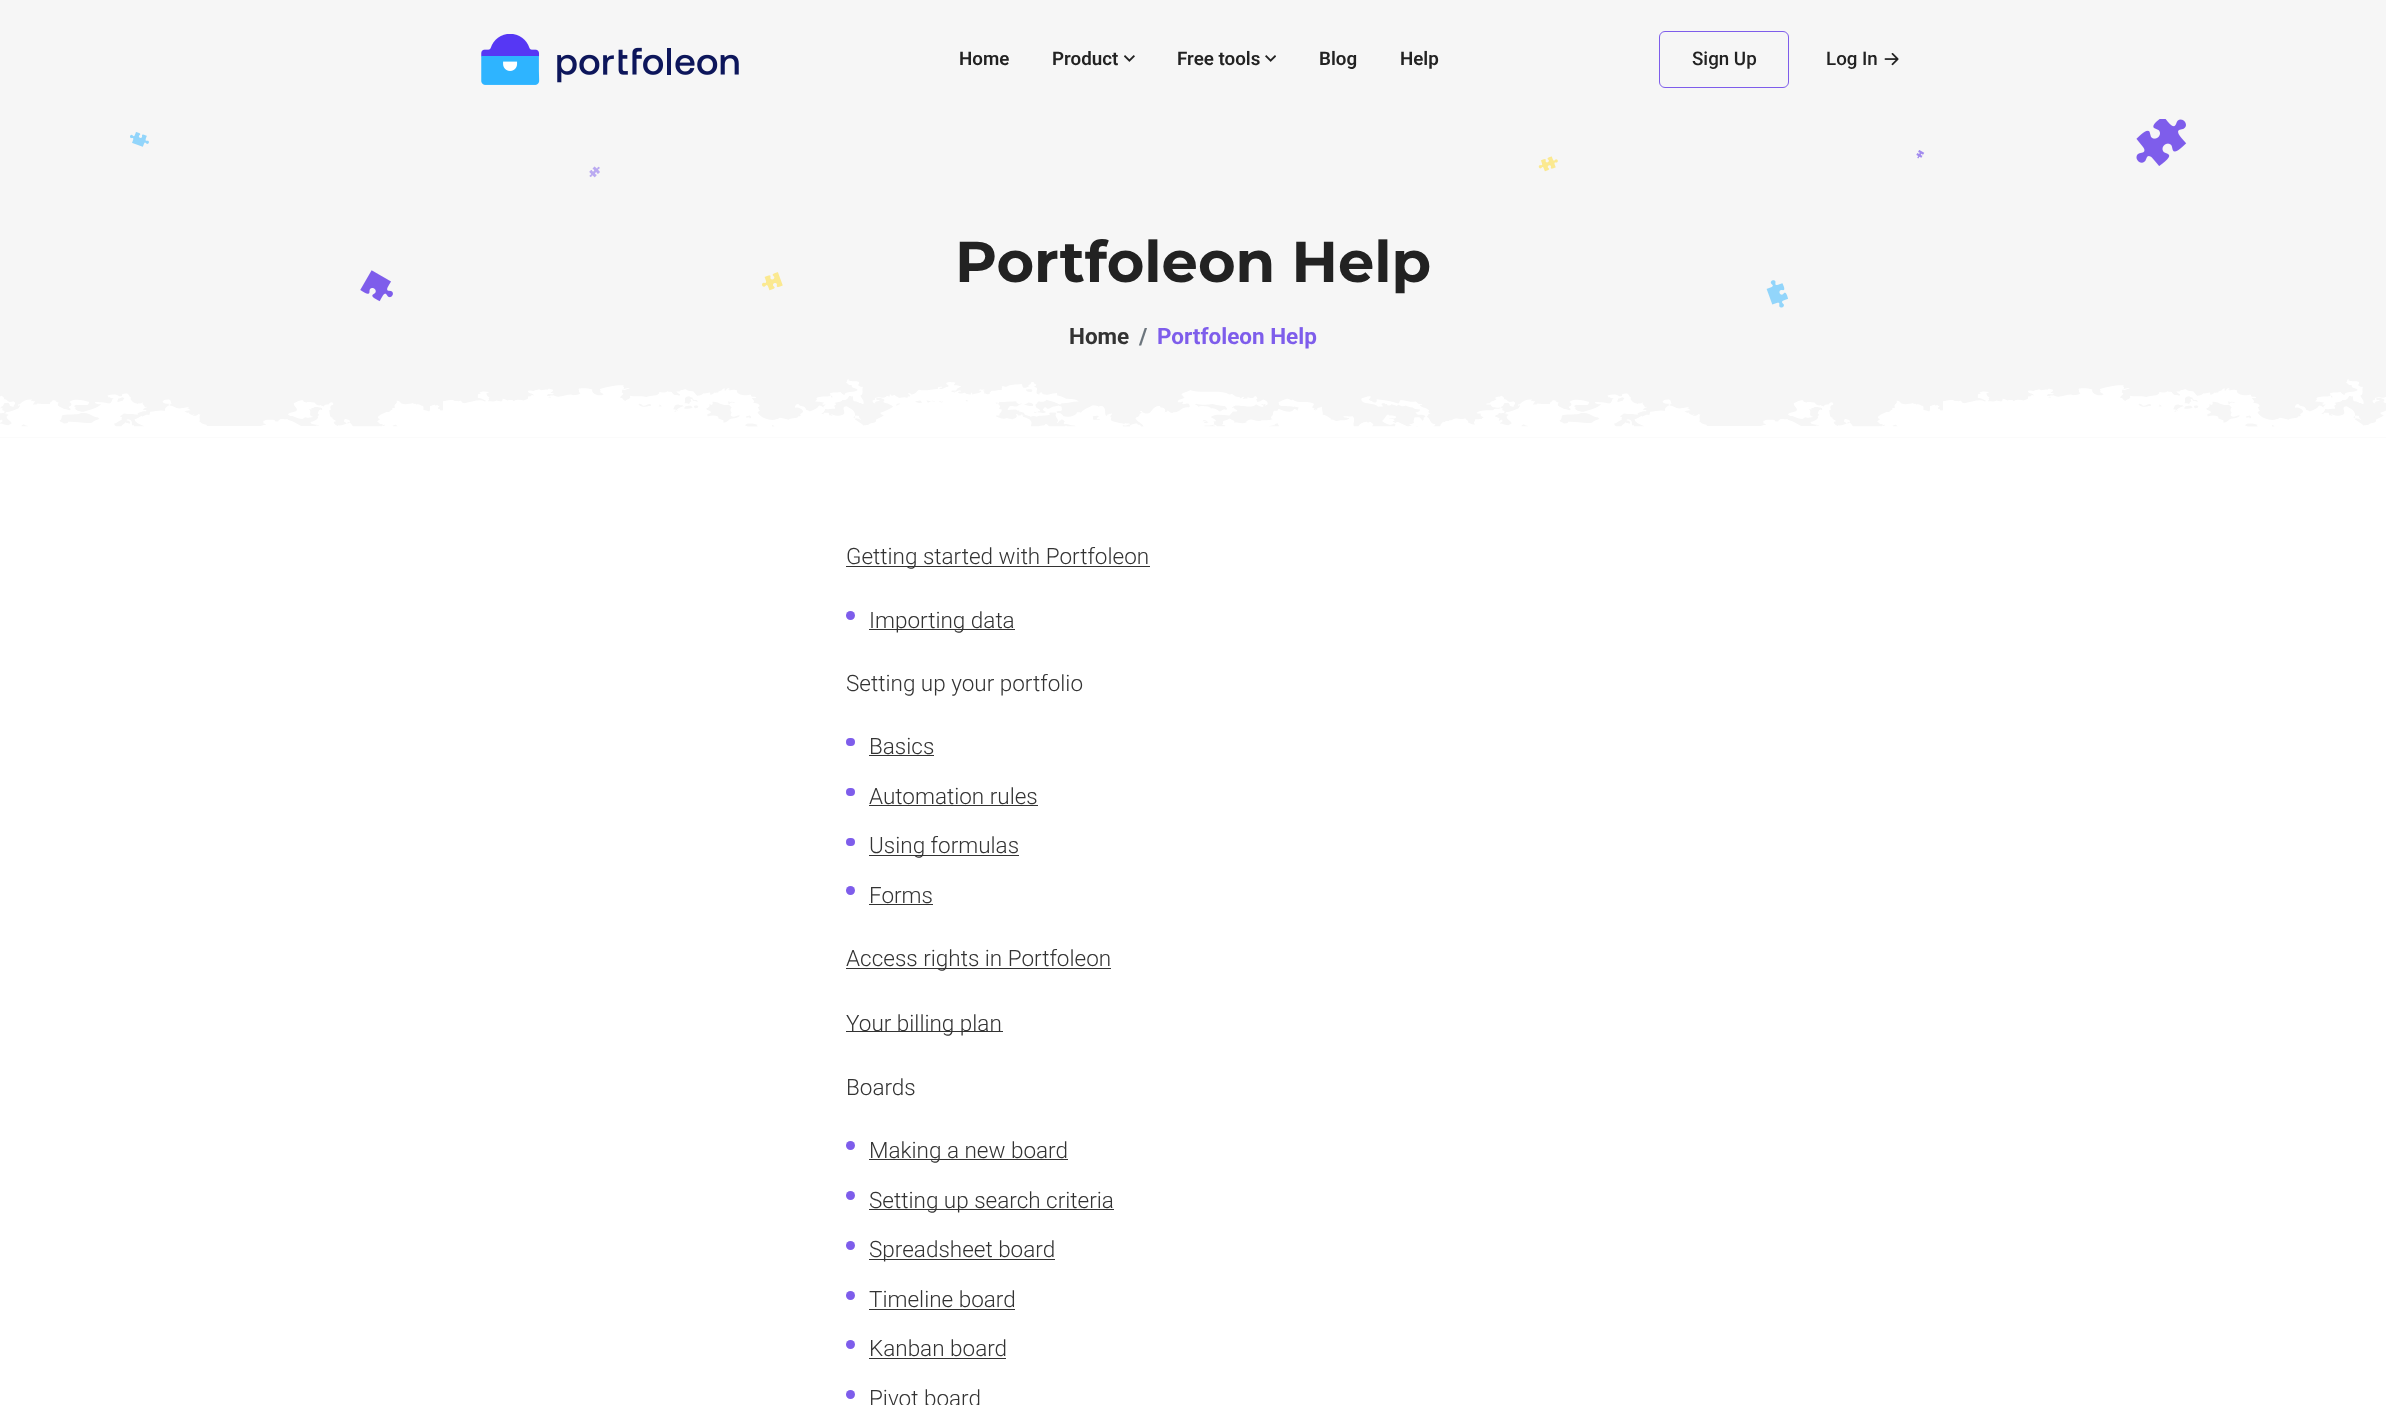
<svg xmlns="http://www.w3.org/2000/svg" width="2386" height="1405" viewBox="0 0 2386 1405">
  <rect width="100%" height="100%" fill="#fff"/>
  <path d="M0 0h2386v438H0z" fill="#f6f6f6"/>
  <image x="481" y="34" width="258" height="51" href="img/1.png"/>
  <image x="1124" y="55" width="11" height="7" href="img/2.png"/>
  <image x="1265" y="55" width="11" height="7" href="img/3.png"/>
  <rect x="1659.5" y="31.5" width="129" height="56" rx="5.5" fill="none" stroke="#7e5deb"/>
  <image x="1884" y="53" width="15" height="13" href="img/4.png"/>
  <image x="0" y="379" width="2386" height="59" href="img/5.png"/>
  <image x="130" y="132" width="19" height="15" href="img/6.png"/>
  <image x="2136" y="119" width="51" height="47" href="img/7.png"/>
  <image x="1916" y="150" width="9" height="9" href="img/8.png"/>
  <image x="589" y="166" width="11" height="12" href="img/9.png"/>
  <image x="1538" y="156" width="20" height="16" href="img/10.png"/>
  <image x="360" y="270" width="33" height="32" href="img/11.png"/>
  <image x="762" y="272" width="21" height="19" href="img/12.png"/>
  <image x="1766" y="280" width="22" height="28" href="img/13.png"/>
  <path d="M846 566h304v1H846z" fill="#333"/>
  <circle cx="850.5" cy="615.5" r="4.5" fill="#7e5deb"/>
  <path d="M869 629h146v1H869z" fill="#333"/>
  <rect x="846" y="738" width="9" height="8" rx="4" fill="#7e5deb"/>
  <path d="M869 755h65v1H869z" fill="#333"/>
  <rect x="846" y="788" width="9" height="8" rx="4" fill="#7e5deb"/>
  <path d="M869 805h169v1H869z" fill="#333"/>
  <rect x="846" y="838" width="9" height="8" rx="4" fill="#7e5deb"/>
  <path d="M869 855h150v1H869z" fill="#333"/>
  <circle cx="850.5" cy="890.5" r="4.5" fill="#7e5deb"/>
  <path d="M869 904h64v1H869z" fill="#333"/>
  <path d="M846 968h265v1H846z" fill="#333"/>
  <path d="M846 1031h157v1H846z" fill="#333"/>
  <circle cx="850.5" cy="1145.5" r="4.5" fill="#7e5deb"/>
  <path d="M869 1159h199v1H869z" fill="#333"/>
  <circle cx="850.5" cy="1195.5" r="4.5" fill="#7e5deb"/>
  <path d="M869 1209h245v1H869z" fill="#333"/>
  <circle cx="850.5" cy="1245.5" r="4.5" fill="#7e5deb"/>
  <path d="M869 1259h186v1H869z" fill="#333"/>
  <circle cx="850.5" cy="1295.5" r="4.5" fill="#7e5deb"/>
  <path d="M869 1309h146v1H869z" fill="#333"/>
  <circle cx="850.5" cy="1344.5" r="4.5" fill="#7e5deb"/>
  <path d="M869 1358h137v1H869z" fill="#333"/>
  <circle cx="850.5" cy="1394.5" r="4.5" fill="#7e5deb"/>
  <g font-family="Roboto" font-size="18.75" font-weight="600" fill="#222">
    <text x="959" y="65">Home</text>
    <text x="1052" y="65">Product</text>
    <text x="1177" y="65">Free tools</text>
    <text x="1319" y="65">Blog</text>
    <text x="1400" y="65">Help</text>
  </g>
  <g font-family="Roboto" font-size="18.75" font-weight="500" fill="#222">
    <text x="1692" y="65">Sign Up</text>
    <text x="1826" y="65">Log In</text>
  </g>
  <text x="955" y="282" font-family="Montserrat" font-size="57.5" font-weight="bold" fill="#222">Portfoleon Help</text>
  <text x="1069" y="344" font-family="Roboto" font-size="22.5" font-weight="bold" fill="#333">Home</text>
  <text x="1139" y="344" font-family="Roboto" font-size="22.5" font-weight="bold" fill="#6c757d">/</text>
  <text x="1157" y="344" font-family="Roboto" font-size="22.5" font-weight="bold" fill="#7e5deb">Portfoleon Help</text>
  <g font-family="Roboto" font-size="22.5" font-weight="300" fill="#333">
    <text x="846" y="564">Getting started with Portfoleon</text>
    <text x="869" y="628">Importing data</text>
    <text x="846" y="691">Setting up your portfolio</text>
    <text x="869" y="754">Basics</text>
    <text x="869" y="804">Automation rules</text>
    <text x="869" y="853">Using formulas</text>
    <text x="869" y="903">Forms</text>
    <text x="846" y="966">Access rights in Portfoleon</text>
    <text x="846" y="1031">Your billing plan</text>
    <text x="846" y="1095">Boards</text>
    <text x="869" y="1158">Making a new board</text>
    <text x="869" y="1208">Setting up search criteria</text>
    <text x="869" y="1257">Spreadsheet board</text>
    <text x="869" y="1307">Timeline board</text>
    <text x="869" y="1356">Kanban board</text>
    <text x="869" y="1406">Pivot board</text>
  </g>
</svg>
